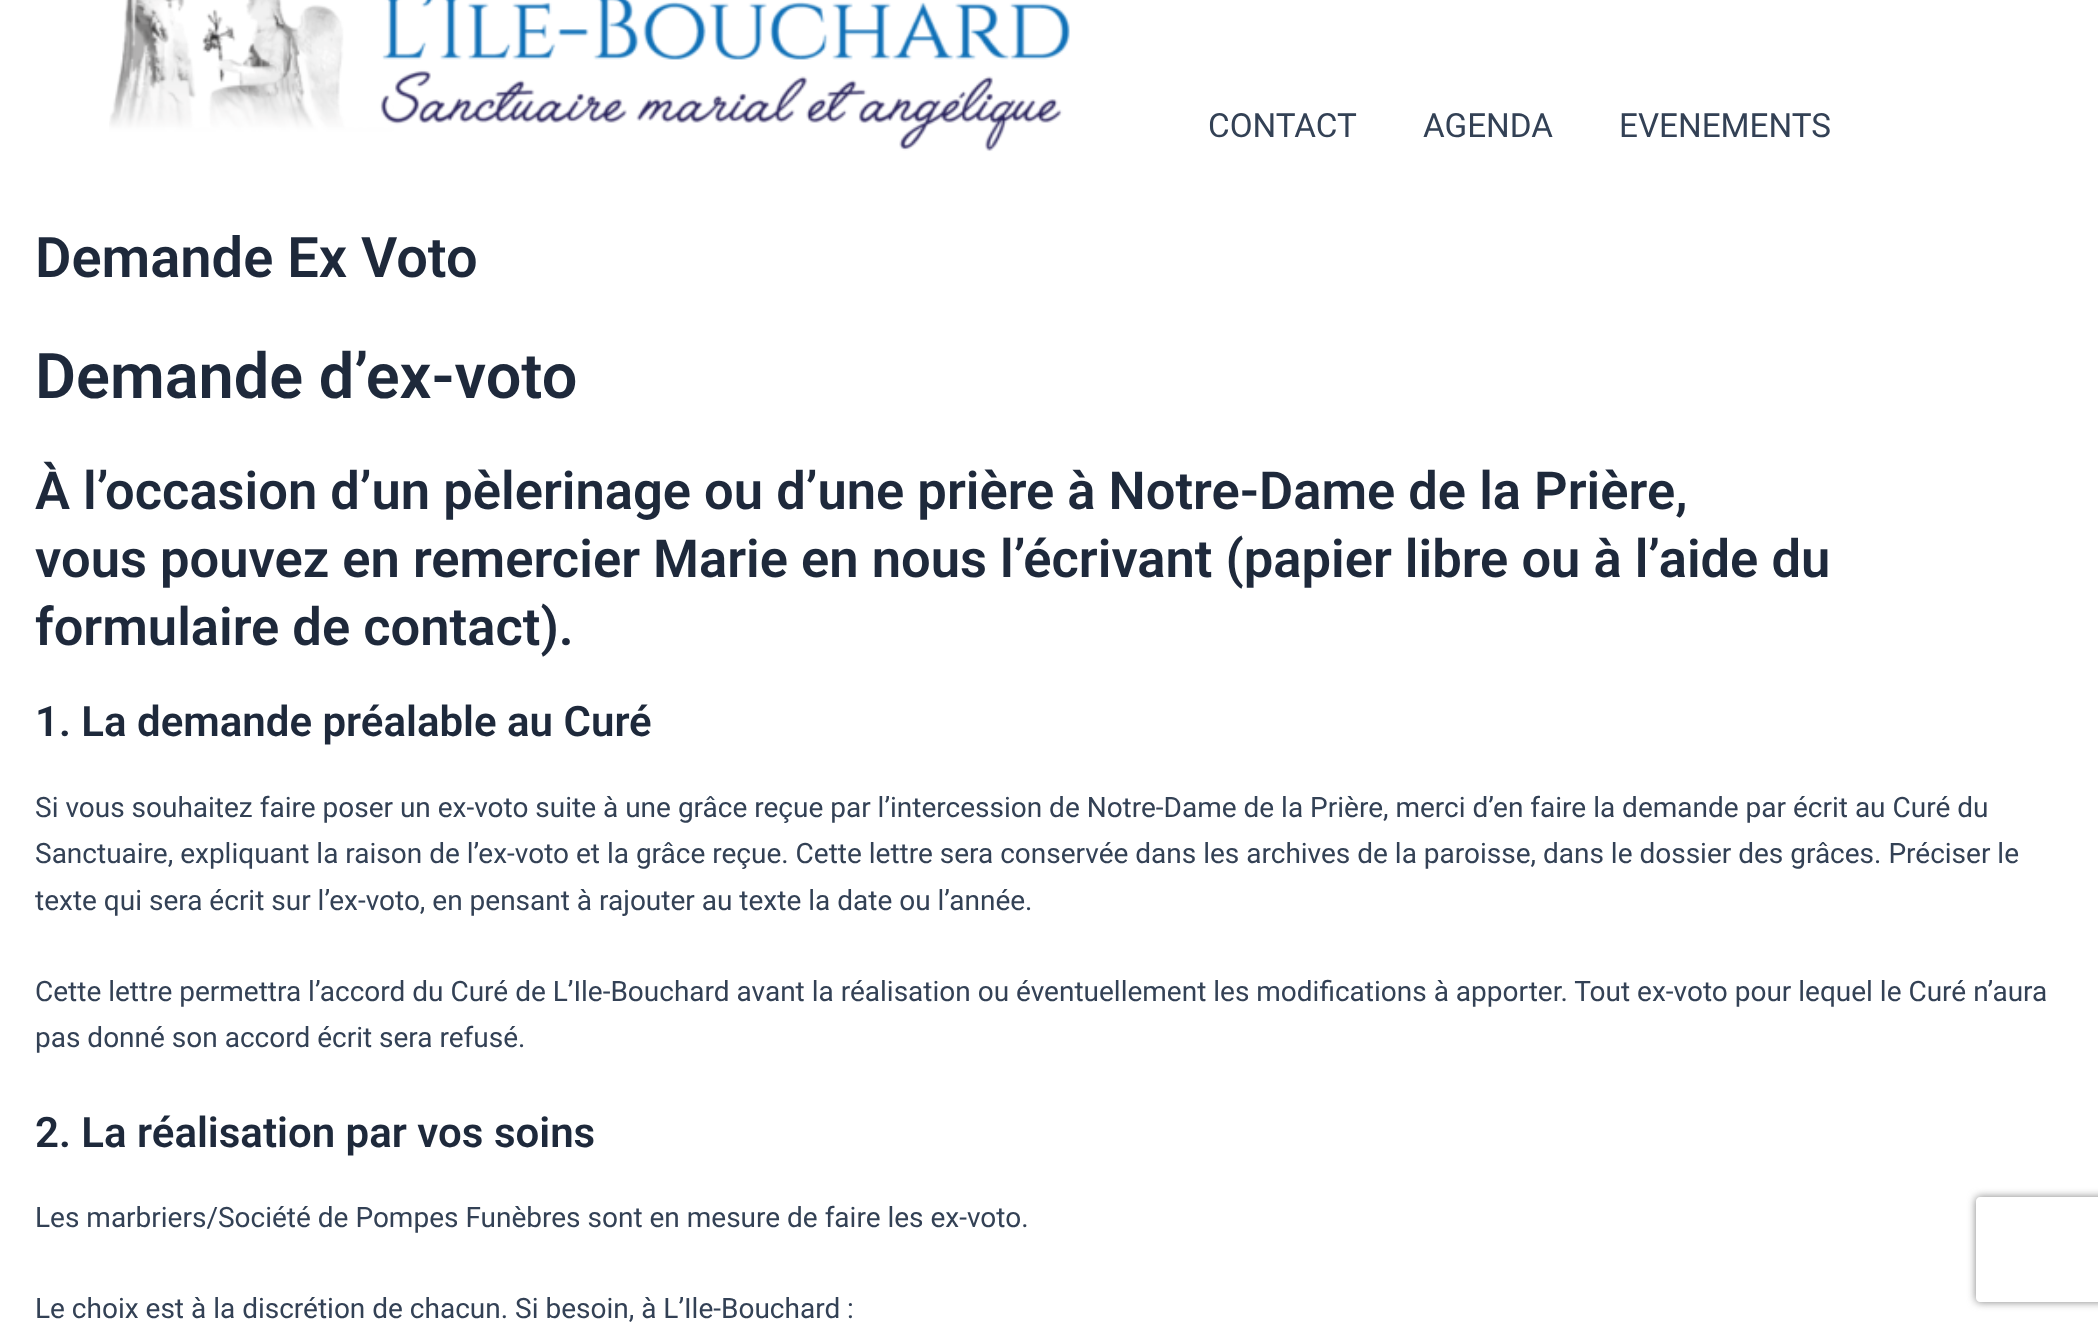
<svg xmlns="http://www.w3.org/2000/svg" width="2098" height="1325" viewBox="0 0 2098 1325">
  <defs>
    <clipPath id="clip1"><path d="M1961 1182H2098V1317H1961ZM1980 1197H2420C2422 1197 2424 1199 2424 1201V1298C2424 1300 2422 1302 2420 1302H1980C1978 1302 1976 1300 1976 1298V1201C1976 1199 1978 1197 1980 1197Z" clip-rule="evenodd"/></clipPath>
  </defs>
  <rect width="100%" height="100%" fill="#fff"/>
  <image x="109" y="0" width="961" height="152" href="img/1.png"/>
  <g clip-path="url(#clip1)">
    <rect x="1976" y="1197" width="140" height="105" rx="4" fill="#808080" filter="blur(4.5px)"/>
  </g>
  <g font-family="Roboto" font-size="33.25" fill="#334155">
    <text x="1208" y="137">CONTACT</text>
    <text x="1423" y="137">AGENDA</text>
    <text x="1619" y="137">EVENEMENTS</text>
  </g>
  <text x="35" y="277" font-family="Roboto" font-size="56" font-weight="600" fill="#1e293b">Demande Ex Voto</text>
  <text x="35" y="398" font-family="Roboto" font-size="63" font-weight="600" fill="#1e293b">Demande d’ex-voto</text>
  <g font-family="Roboto" font-size="52.5" font-weight="600" fill="#1e293b">
    <text x="35" y="509">À l’occasion d’un pèlerinage ou d’une prière à Notre-Dame de la Prière,</text>
    <text x="35" y="577">vous pouvez en remercier Marie en nous l’écrivant (papier libre ou à l’aide du</text>
    <text x="35" y="645">formulaire de contact).</text>
  </g>
  <text x="35" y="736" font-family="Roboto" font-size="42" font-weight="600" fill="#1e293b">1. La demande préalable au Curé</text>
  <g font-family="Roboto" font-size="28" fill="#334155">
    <text x="35" y="817">Si vous souhaitez faire poser un ex-voto suite à une grâce reçue par l’intercession de Notre-Dame de la Prière, merci d’en faire la demande par écrit au Curé du</text>
    <text x="35" y="863">Sanctuaire, expliquant la raison de l’ex-voto et la grâce reçue. Cette lettre sera conservée dans les archives de la paroisse, dans le dossier des grâces. Préciser le</text>
    <text x="35" y="910">texte qui sera écrit sur l’ex-voto, en pensant à rajouter au texte la date ou l’année.</text>
    <text x="35" y="1001">Cette lettre permettra l’accord du Curé de L’Ile-Bouchard avant la réalisation ou éventuellement les modifications à apporter. Tout ex-voto pour lequel le Curé n’aura</text>
    <text x="35" y="1047">pas donné son accord écrit sera refusé.</text>
  </g>
  <text x="35" y="1147" font-family="Roboto" font-size="42" font-weight="600" fill="#1e293b">2. La réalisation par vos soins</text>
  <g font-family="Roboto" font-size="28" fill="#334155">
    <text x="35" y="1227">Les marbriers/Société de Pompes Funèbres sont en mesure de faire les ex-voto.</text>
    <text x="35" y="1318">Le choix est à la discrétion de chacun. Si besoin, à L’Ile-Bouchard :</text>
  </g>
</svg>
